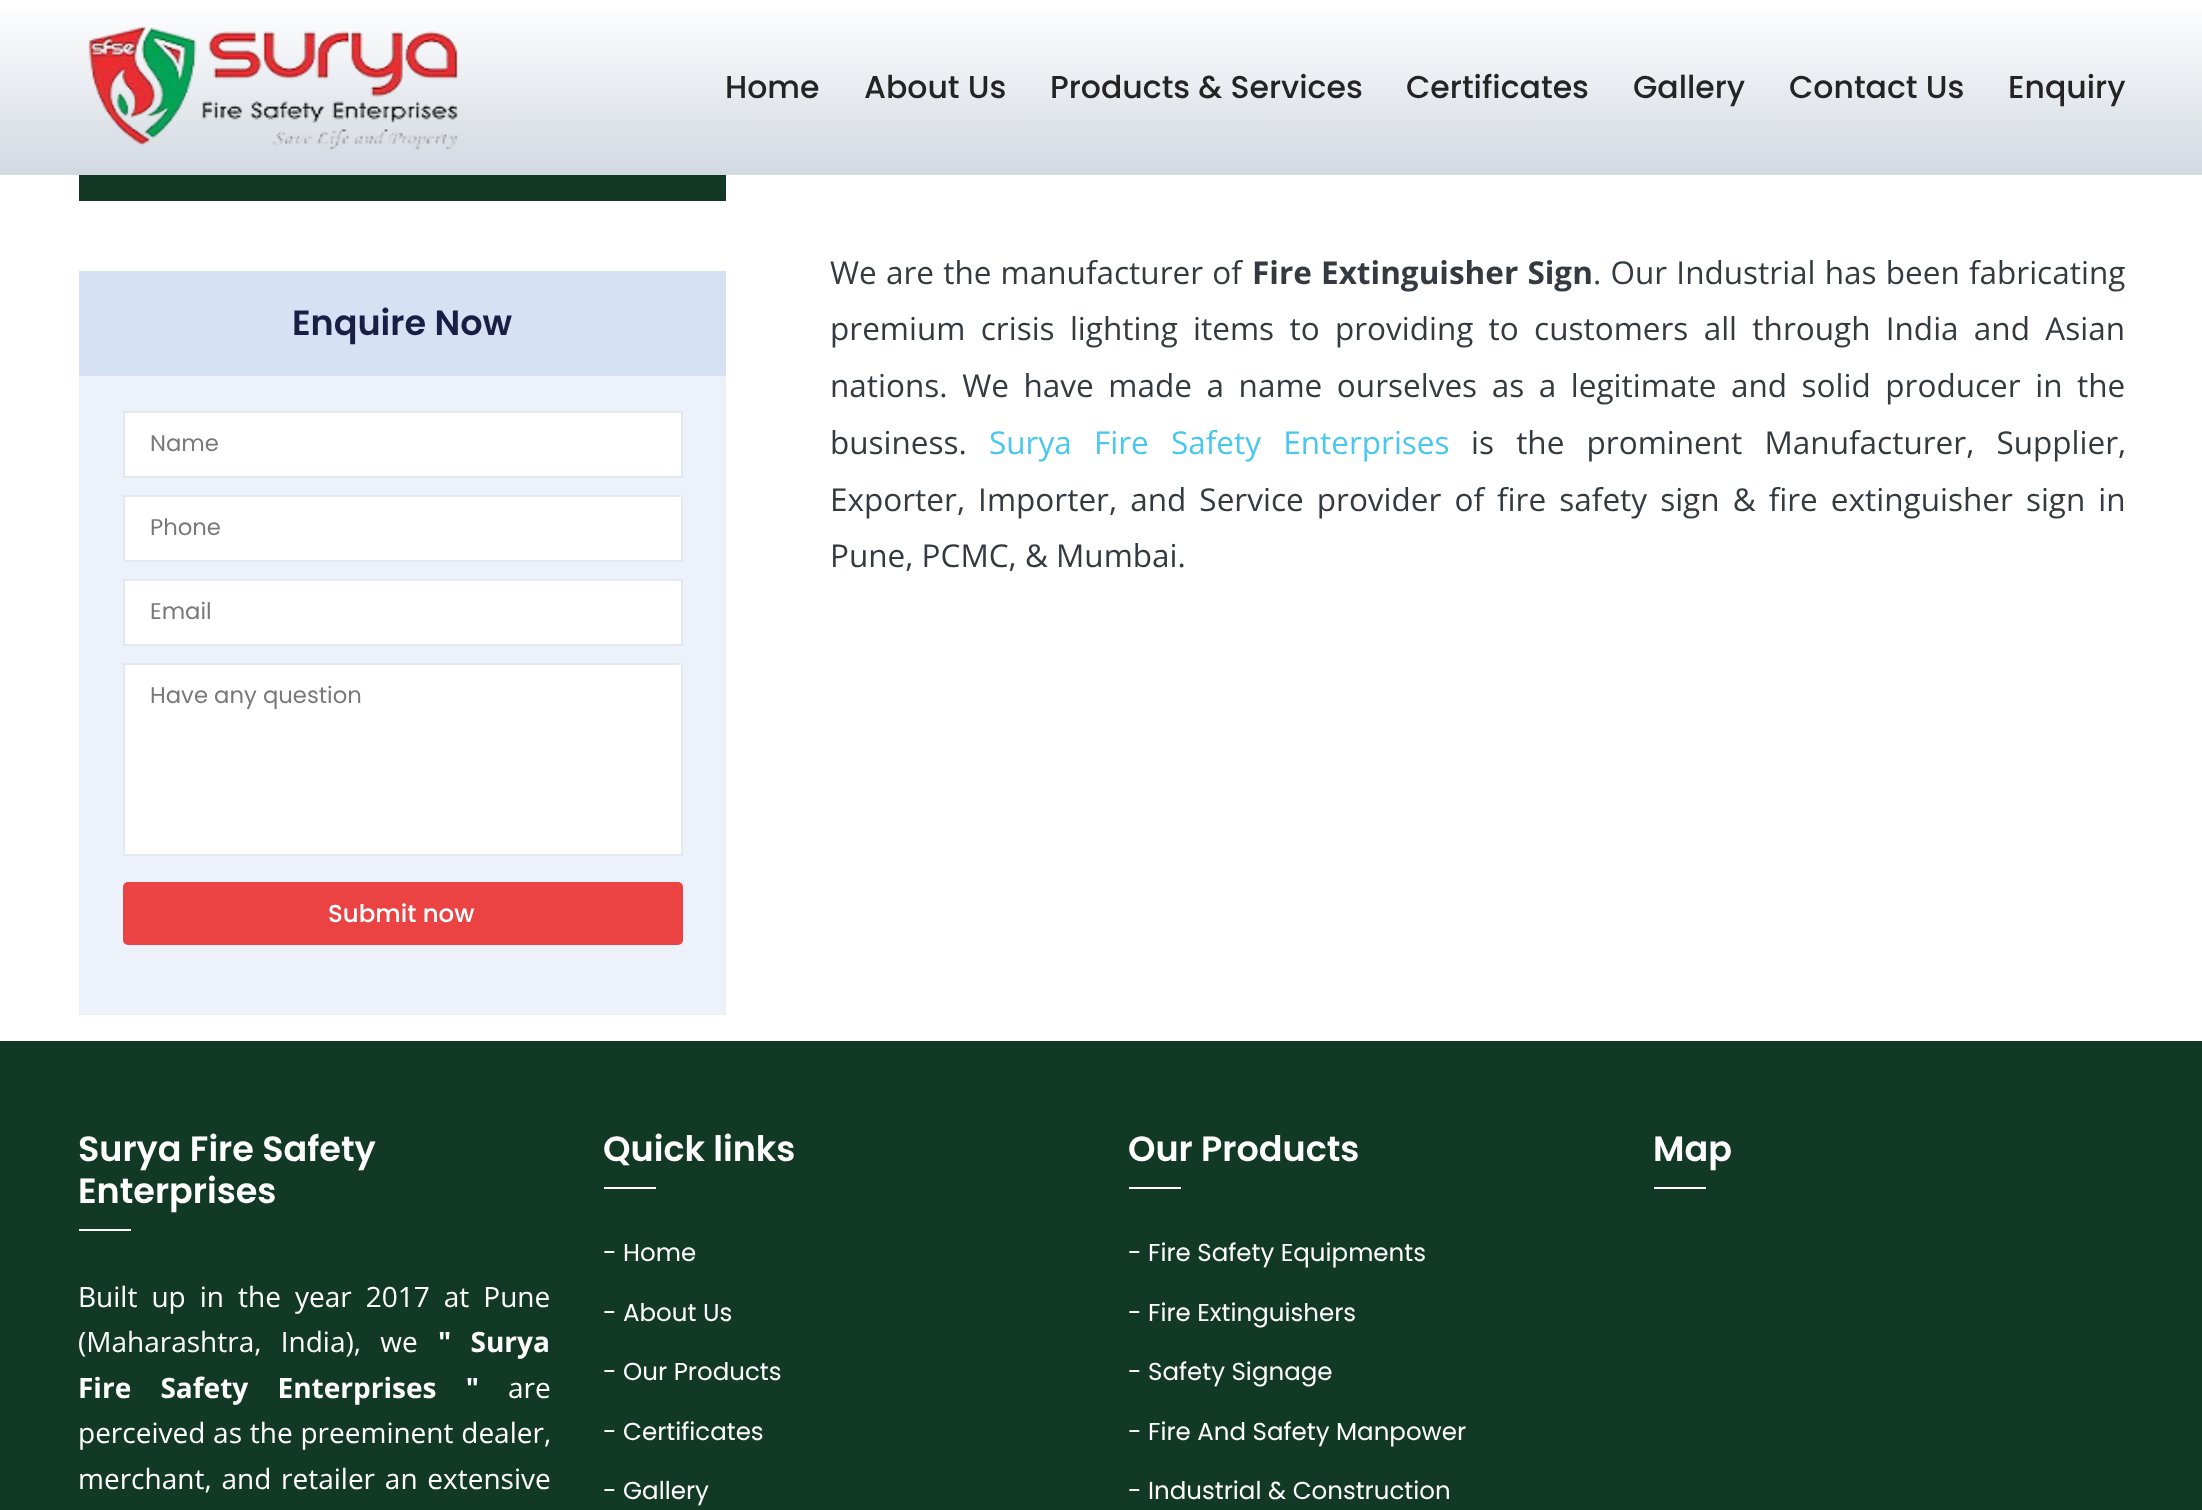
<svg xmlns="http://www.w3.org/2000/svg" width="2202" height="1510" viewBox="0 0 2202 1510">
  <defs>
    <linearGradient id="g1" gradientUnits="userSpaceOnUse" x1="1102" y1="0" x2="1102" y2="175"><stop offset="0" stop-color="#fff"/><stop offset="1" stop-color="#d2d9e1"/></linearGradient>
  </defs>
  <rect width="100%" height="100%" fill="#fff"/>
  <path d="M0 10h2202v165H0z" fill="url(#g1)"/>
  <image x="88" y="26" width="370" height="124" href="img/1.png"/>
  <path d="M79 175h647v26H79z" fill="#133926"/>
  <path d="M79 271h647v105H79z" fill="#d7e1f4"/>
  <path d="M79 376h647v639H79z" fill="#edf1f9"/>
  <path d="M124 412h558v65H124z" fill="#fff" stroke="#e3e8f3" stroke-width="2"/>
  <path d="M124 496h558v65H124z" fill="#fff" stroke="#e3e8f3" stroke-width="2"/>
  <path d="M124 580h558v65H124z" fill="#fff" stroke="#e3e8f3" stroke-width="2"/>
  <path d="M124 664h558v191H124z" fill="#fff" stroke="#e3e8f3" stroke-width="2"/>
  <rect x="123" y="882" width="560" height="63" rx="5" fill="#eb4343"/>
  <path d="M0 1041h2202v469H0z" fill="#123926"/>
  <path d="M79 1229h52v2H79z" fill="#fff"/>
  <path d="M604 1187h52v2H604z" fill="#fff"/>
  <path d="M1129 1187h52v2H1129z" fill="#fff"/>
  <path d="M1654 1187h52v2H1654z" fill="#fff"/>
  <g font-family="Poppins" font-size="31.5" font-weight="500" fill="#242424">
    <text x="725" y="98">Home</text>
    <text x="864" y="98">About Us</text>
    <text x="1050" y="98">Products &amp; Services</text>
    <text x="1406" y="98">Certificates</text>
    <text x="1633" y="98">Gallery</text>
    <text x="1789" y="98">Contact Us</text>
    <text x="2008" y="98">Enquiry</text>
  </g>
  <text x="292" y="335" font-family="Poppins" font-size="35" font-weight="600" fill="#181e44">Enquire Now</text>
  <g font-family="Poppins" font-size="22.75" fill="#797979">
    <text x="150" y="451">Name</text>
    <text x="150" y="535">Phone</text>
    <text x="150" y="619">Email</text>
    <text x="150" y="703">Have any question</text>
  </g>
  <text x="328" y="922" font-family="Poppins" font-size="24.5" font-weight="500" fill="#fff">Submit now</text>
  <text x="830" y="284" word-spacing="1" font-family="Open Sans" font-size="31.5" fill="#343a40">We are the manufacturer of</text>
  <text x="1252" y="284" word-spacing="1" font-family="Open Sans" font-size="31.5" font-weight="bold" fill="#343a40">Fire Extinguisher Sign</text>
  <g font-family="Open Sans" font-size="31.5" fill="#343a40">
    <text x="1593" y="284" word-spacing="1">. Our Industrial has been fabricating</text>
    <text x="830" y="340" word-spacing="7.1">premium crisis lighting items to providing to customers all through India and Asian</text>
    <text x="830" y="397" word-spacing="6.4">nations. We have made a name ourselves as a legitimate and solid producer in the</text>
    <text x="830" y="454">business.</text>
  </g>
  <text x="989" y="454" word-spacing="14" font-family="Open Sans" font-size="31.5" fill="#49c7ed">Surya Fire Safety Enterprises</text>
  <g font-family="Open Sans" font-size="31.5" fill="#343a40">
    <text x="1471" y="454" word-spacing="14">is the prominent Manufacturer, Supplier,</text>
    <text x="830" y="511" word-spacing="4.9">Exporter, Importer, and Service provider of fire safety sign &amp; fire extinguisher sign in</text>
    <text x="830" y="567">Pune, PCMC, &amp; Mumbai.</text>
  </g>
  <g font-family="Poppins" font-size="35" font-weight="600" fill="#fff">
    <text x="78" y="1161">Surya Fire Safety</text>
    <text x="78" y="1203">Enterprises</text>
  </g>
  <g font-family="Open Sans" font-size="28" fill="#fff">
    <text x="78" y="1307" word-spacing="6.75">Built up in the year 2017 at Pune</text>
    <text x="78" y="1352" word-spacing="12">(Maharashtra, India), we</text>
  </g>
  <g font-family="Open Sans" font-size="28" font-weight="bold" fill="#fff">
    <text x="438" y="1352" word-spacing="12">" Surya</text>
    <text x="78" y="1398" word-spacing="22">Fire Safety Enterprises "</text>
  </g>
  <g font-family="Open Sans" font-size="28" fill="#fff">
    <text x="508" y="1398">are</text>
    <text x="78" y="1443" word-spacing="0.5">perceived as the preeminent dealer,</text>
    <text x="78" y="1489" word-spacing="2.5">merchant, and retailer an extensive</text>
  </g>
  <text x="603" y="1161" font-family="Poppins" font-size="35" font-weight="600" fill="#fff">Quick links</text>
  <g font-family="Poppins" font-size="24.5" fill="#fff">
    <text x="603" y="1261">- Home</text>
    <text x="603" y="1321">- About Us</text>
    <text x="603" y="1380">- Our Products</text>
    <text x="603" y="1440">- Certificates</text>
    <text x="603" y="1499">- Gallery</text>
  </g>
  <text x="1128" y="1161" font-family="Poppins" font-size="35" font-weight="600" fill="#fff">Our Products</text>
  <g font-family="Poppins" font-size="24.5" fill="#fff">
    <text x="1128" y="1261">- Fire Safety Equipments</text>
    <text x="1128" y="1321">- Fire Extinguishers</text>
    <text x="1128" y="1380">- Safety Signage</text>
    <text x="1128" y="1440">- Fire And Safety Manpower</text>
    <text x="1128" y="1499">- Industrial &amp; Construction</text>
  </g>
  <text x="1653" y="1161" font-family="Poppins" font-size="35" font-weight="600" fill="#fff">Map</text>
</svg>
